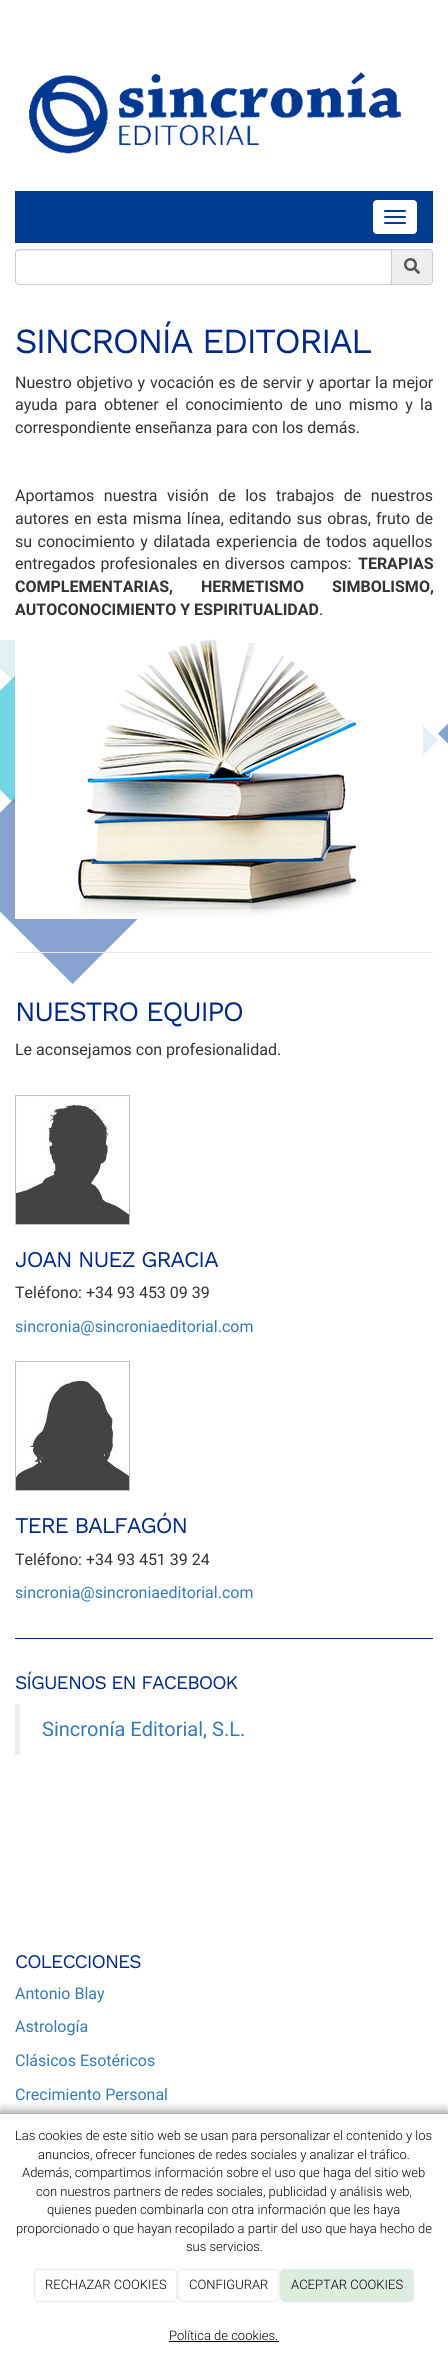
import math
import cairocffi as cairo

surface = cairo.ImageSurface(cairo.FORMAT_RGB24, 448, 2359)
cr = cairo.Context(surface)
options = cairo.FontOptions()
options.set_hint_metrics(cairo.HINT_METRICS_OFF)
options.set_hint_style(cairo.HINT_STYLE_NONE)
cr.set_font_options(options)
cr.set_miter_limit(4)


def use_color(code):
    cr.set_source_rgb(*(v / 255 for v in bytes.fromhex(code[-6:])))


def spaced_text(x, y, s, letter, word):
    cr.move_to(x, y)
    for ch in s:
        cr.show_text(ch)
        cr.rel_move_to(letter + word * (ch == ' '), 0)


def round_rect(x, y, w, h, r):
    cr.new_sub_path()
    for i, (u, v) in enumerate([(x + w - r, y + h - r), (x + r, y + h - r), (x + r, y + r), (x + w - r, y + r)]):
        cr.arc(u, v, r, i * math.pi / 2, (i + 1) * math.pi / 2)
    cr.close_path()


def shadow(x, y, w, h, r, blur, alpha):
    cr.push_group_with_content(cairo.CONTENT_ALPHA)
    cr.set_operator(cairo.OPERATOR_SOURCE)
    for i in range(15, -16, -2):
        e = blur * i / 6
        if min(w, h) + 2 * e > 0:
            cr.set_source_rgba(0, 0, 0, alpha * math.erfc((i - 1) / 8.5) / 2)
            round_rect(x - e, y - e, w + 2 * e, h + 2 * e, max(0, min(r + e + blur * .6, min(w, h) / 2 + e)))
            cr.fill()
    cr.mask(cr.pop_group())


def picture(path, x, y, w, h):
    cr.save()
    cr.set_source_surface(cairo.ImageSurface.create_from_png(path), x, y)
    cr.rectangle(x, y, w, h)
    cr.fill()
    cr.restore()


use_color("#ffffff")
cr.paint()
picture("img1.png", 0, 640, 448, 344)
picture("img2.png", 29, 72, 372, 82)
use_color("#003d91")
cr.rectangle(16, 191, 417, 51)
cr.fill()
use_color("#003693")
cr.rectangle(15, 242, 418, 1)
cr.fill()
use_color("#003d91")
cr.rectangle(15, 191, 1, 52)
cr.fill()
use_color("#ffffff")
round_rect(373.5, 200.5, 43, 33, 3.5)
cr.fill_preserve()
cr.set_line_width(1)
cr.stroke()
use_color("#003d91")
round_rect(384, 210, 22, 2, 1)
cr.fill()
round_rect(384, 216, 22, 2, 1)
cr.fill()
round_rect(384, 222, 22, 2, 1)
cr.fill()
use_color("#ececec")
cr.new_path()
cr.move_to(19, 251)
cr.line_to(391, 251)
cr.line_to(391, 250)
cr.line_to(19, 250)
cr.curve_to(17, 250, 16, 251, 16, 253)
cr.line_to(16, 254)
cr.curve_to(16, 252, 17, 251, 19, 251)
cr.close_path()
cr.fill()
cr.new_path()
cr.move_to(19, 249.5)
cr.line_to(391.5, 249.5)
cr.line_to(391.5, 284.5)
cr.line_to(19, 284.5)
cr.curve_to(17, 284.5, 15.5, 283, 15.5, 281)
cr.line_to(15.5, 253)
cr.curve_to(15.5, 251, 17, 249.5, 19, 249.5)
cr.close_path()
use_color("#cccccc")
cr.stroke()
use_color("#eeeeee")
cr.new_path()
cr.move_to(392, 249)
cr.line_to(429, 249)
cr.curve_to(431, 249, 433, 251, 433, 253)
cr.line_to(433, 281)
cr.curve_to(433, 283, 431, 285, 429, 285)
cr.line_to(392, 285)
cr.close_path()
cr.fill()
use_color("#cccccc")
cr.set_fill_rule(cairo.FILL_RULE_EVEN_ODD)
cr.new_path()
cr.move_to(392, 249)
cr.line_to(429, 249)
cr.curve_to(431, 249, 433, 251, 433, 253)
cr.line_to(433, 281)
cr.curve_to(433, 283, 431, 285, 429, 285)
cr.line_to(392, 285)
cr.close_path()
cr.move_to(392, 250)
cr.line_to(429, 250)
cr.curve_to(431, 250, 432, 251, 432, 253)
cr.line_to(432, 281)
cr.curve_to(432, 283, 431, 284, 429, 284)
cr.line_to(392, 284)
cr.close_path()
cr.fill()
picture("img3.png", 404, 258, 16, 16)
cr.select_font_face("Work Sans")
cr.set_font_size(35.25)
use_color("#002985")
spaced_text(15, 353, "SINCRONÍA EDITORIAL", -1.75, 0)
cr.select_font_face("Roboto")
cr.set_font_size(16)
use_color("#333333")
spaced_text(15, 388, "Nuestro objetivo y vocación es de servir y aportar la mejor", 0, 0.75)
spaced_text(15, 410, "ayuda para obtener el conocimiento de uno mismo y la", 0, 3.25)
cr.move_to(15, 433)
cr.show_text("correspondiente enseñanza para con los demás.")
spaced_text(15, 501, "Aportamos nuestra visión de los trabajos de nuestros", 0, 5.5)
spaced_text(15, 524, "autores en esta misma línea, editando sus obras, fruto de", 0, 1.25)
spaced_text(15, 547, "su conocimiento y dilatada experiencia de todos aquellos", 0, 1.5)
spaced_text(15, 569, "entregados profesionales en diversos campos:", 0, 1)
cr.select_font_face("Roboto", cairo.FONT_SLANT_NORMAL, cairo.FONT_WEIGHT_BOLD)
cr.move_to(358, 569)
cr.show_text("TERAPIAS")
spaced_text(15, 592, "COMPLEMENTARIAS, HERMETISMO SIMBOLISMO,", 0, 24)
cr.move_to(15, 615)
cr.show_text("AUTOCONOCIMIENTO Y ESPIRITUALIDAD")
cr.select_font_face("Roboto")
cr.move_to(319, 615)
cr.show_text(".")
picture("img4.png", 15, 639, 408, 280)
use_color("#e8e8e8")
cr.rectangle(15, 952, 418, 1)
cr.fill()
cr.select_font_face("Work Sans")
cr.set_font_size(28)
use_color("#002985")
spaced_text(15, 1021, "NUESTRO EQUIPO", -1.4, 0)
cr.select_font_face("Roboto")
cr.set_font_size(16)
use_color("#333333")
cr.move_to(15, 1055)
cr.show_text("Le aconsejamos con profesionalidad.")
picture("img5.png", 15, 1095, 115, 130)
cr.select_font_face("Work Sans")
cr.set_font_size(22.5)
use_color("#002985")
spaced_text(15, 1267, "JOAN NUEZ GRACIA", -1.1, 0)
cr.select_font_face("Roboto")
cr.set_font_size(16)
use_color("#333333")
cr.move_to(15, 1298)
cr.show_text("Teléfono: +34 93 453 09 39")
use_color("#337ab7")
cr.move_to(15, 1332)
cr.show_text("sincronia@sincroniaeditorial.com")
picture("img6.png", 15, 1361, 115, 130)
cr.select_font_face("Work Sans")
cr.set_font_size(22.5)
use_color("#002985")
spaced_text(15, 1533, "TERE BALFAGÓN", -1.1, 0)
cr.select_font_face("Roboto")
cr.set_font_size(16)
use_color("#333333")
cr.move_to(15, 1565)
cr.show_text("Teléfono: +34 93 451 39 24")
use_color("#337ab7")
cr.move_to(15, 1598)
cr.show_text("sincronia@sincroniaeditorial.com")
use_color("#002985")
cr.rectangle(15, 1638, 418, 1)
cr.fill()
cr.select_font_face("Work Sans")
cr.set_font_size(19.25)
spaced_text(15, 1689, "SÍGUENOS EN FACEBOOK", -1, 0)
use_color("#eeeeee")
cr.rectangle(15, 1704, 5, 51)
cr.fill()
cr.select_font_face("Roboto")
cr.set_font_size(20)
use_color("#337ab7")
cr.move_to(42, 1736)
cr.show_text("Sincronía Editorial, S.L.")
cr.select_font_face("Work Sans")
cr.set_font_size(19.25)
use_color("#002985")
spaced_text(15, 1968, "COLECCIONES", -1, 0)
cr.select_font_face("Roboto")
cr.set_font_size(16)
use_color("#337ab7")
cr.move_to(15, 1999)
cr.show_text("Antonio Blay")
cr.move_to(15, 2032)
cr.show_text("Astrología")
cr.move_to(15, 2066)
cr.show_text("Clásicos Esotéricos")
cr.move_to(15, 2100)
cr.show_text("Crecimiento Personal")
use_color("#000000")
shadow(0, 2114, 448, 245, 0, 6.5, 0.6)
use_color("#ffffff")
cr.rectangle(0, 2114, 448, 245)
cr.fill()
cr.select_font_face("Roboto Light")
cr.set_font_size(13)
use_color("#000000")
cr.move_to(15, 2140)
cr.show_text("Las cookies de este sitio web se usan para personalizar el contenido y los")
cr.move_to(38, 2159)
cr.show_text("anuncios, ofrecer funciones de redes sociales y analizar el tráfico.")
cr.move_to(22, 2177)
cr.show_text("Además, compartimos información sobre el uso que haga del sitio web")
cr.move_to(36, 2196)
cr.show_text("con nuestros partners de redes sociales, publicidad y análisis web,")
cr.move_to(47, 2214)
cr.show_text("quienes pueden combinarla con otra información que les haya")
cr.move_to(16, 2233)
cr.show_text("proporcionado o que hayan recopilado a partir del uso que haya hecho de")
cr.move_to(186, 2251)
cr.show_text("sus servicios.")
use_color("#000000")
shadow(35, 2270, 141, 31, 3, 1, 0.25)
use_color("#ffffff")
round_rect(35, 2270, 141, 31, 3)
cr.fill()
use_color("#000000")
cr.move_to(45, 2289)
cr.show_text("RECHAZAR COOKIES")
use_color("#000000")
shadow(179, 2270, 99, 31, 3, 1, 0.25)
use_color("#ffffff")
round_rect(179, 2270, 99, 31, 3)
cr.fill()
use_color("#000000")
cr.move_to(189, 2289)
cr.show_text("CONFIGURAR")
use_color("#000000")
shadow(281, 2270, 132, 31, 3, 1, 0.25)
use_color("#dcecdf")
round_rect(281, 2270, 132, 31, 3)
cr.fill()
use_color("#000000")
cr.move_to(291, 2289)
cr.show_text("ACEPTAR COOKIES")
cr.move_to(169, 2340)
cr.show_text("Política de cookies.")
cr.rectangle(169, 2341, 110, 1)
cr.fill()
surface.write_to_png("result.png")
